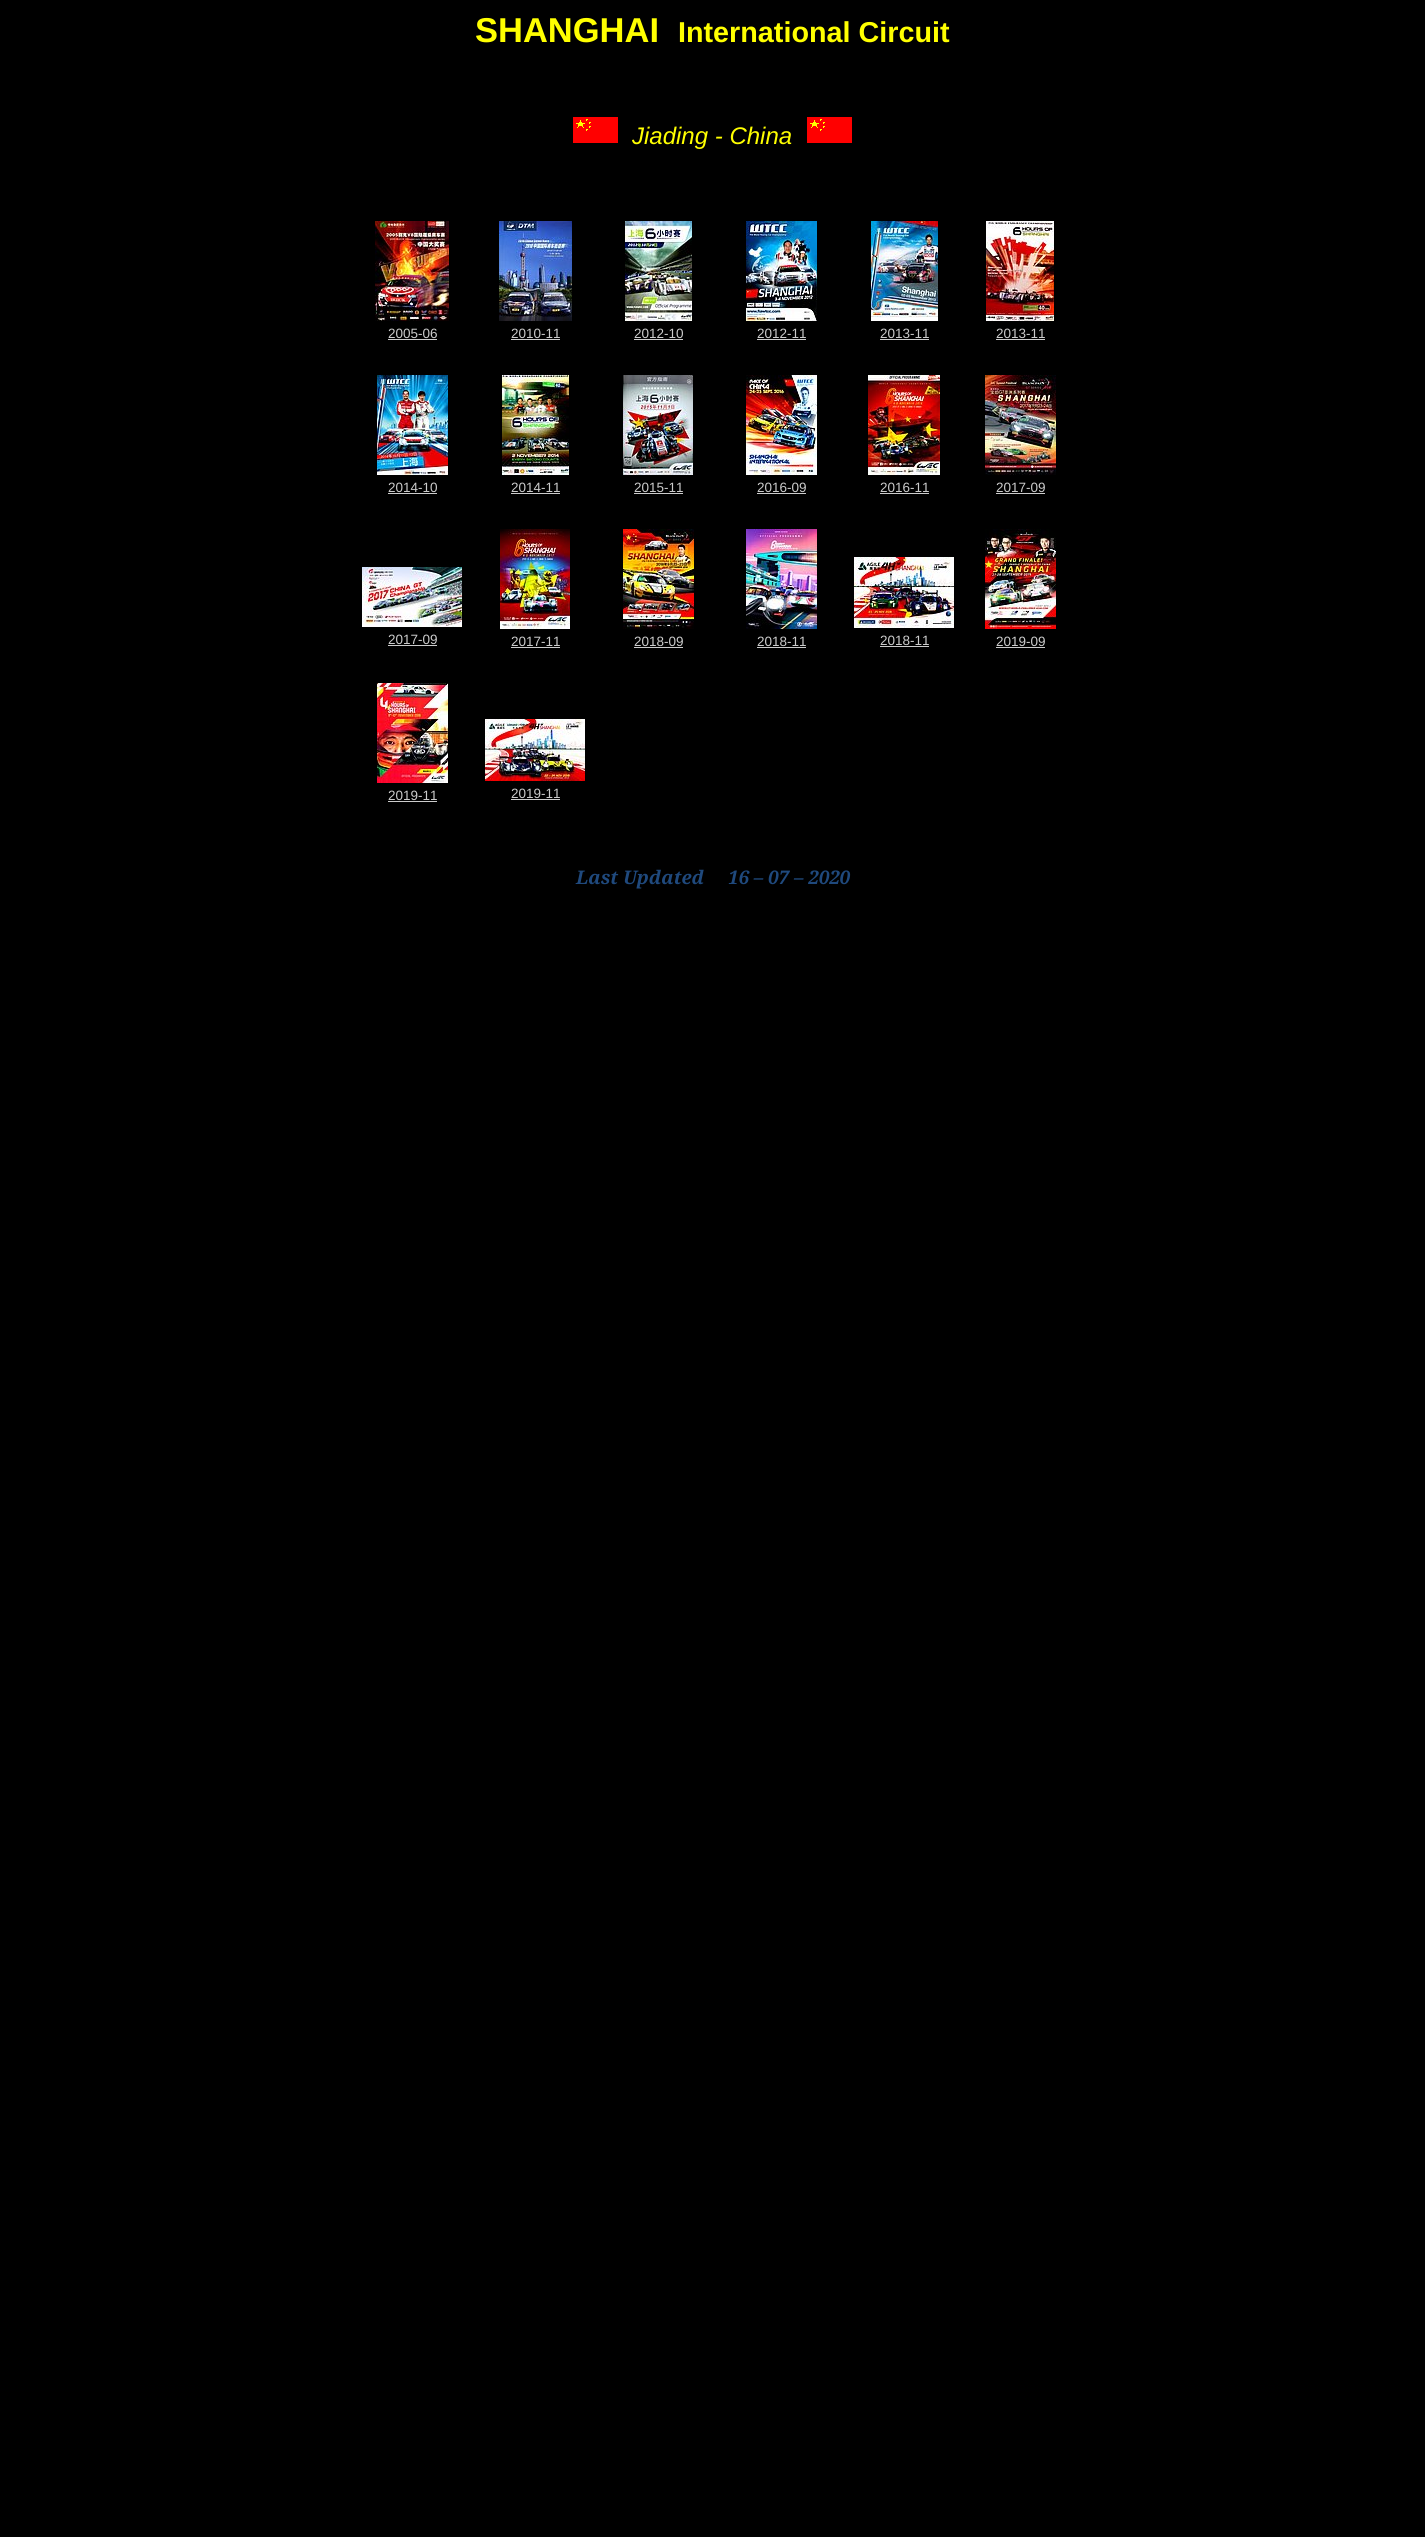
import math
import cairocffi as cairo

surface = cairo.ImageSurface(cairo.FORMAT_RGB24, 1425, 2537)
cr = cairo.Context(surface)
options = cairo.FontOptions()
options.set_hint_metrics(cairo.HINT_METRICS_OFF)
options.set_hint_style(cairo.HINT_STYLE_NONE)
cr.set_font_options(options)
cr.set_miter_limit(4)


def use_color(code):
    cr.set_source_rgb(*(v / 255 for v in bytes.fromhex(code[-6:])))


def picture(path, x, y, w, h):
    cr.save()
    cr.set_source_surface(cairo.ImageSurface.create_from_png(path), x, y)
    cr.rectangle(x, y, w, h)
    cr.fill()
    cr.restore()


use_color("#000000")
cr.paint()
cr.select_font_face("Liberation Sans", cairo.FONT_SLANT_NORMAL, cairo.FONT_WEIGHT_BOLD)
cr.set_font_size(34.5)
use_color("#ffff00")
cr.move_to(475, 42)
cr.show_text("SHANGHAI")
cr.set_font_size(28.75)
cr.move_to(678, 42)
cr.show_text("International Circuit")
picture("img1.png", 573, 117, 45, 26)
cr.select_font_face("Liberation Sans", cairo.FONT_SLANT_ITALIC)
cr.set_font_size(24)
cr.move_to(632, 144)
cr.show_text("Jiading - China")
picture("img1.png", 807, 117, 45, 26)
picture("img2.png", 375, 221, 74, 100)
cr.select_font_face("Liberation Sans")
cr.set_font_size(13.5)
use_color("#cccccc")
cr.move_to(388, 338)
cr.show_text("2005-06")
cr.rectangle(388, 339, 49, 1)
cr.fill()
picture("img3.png", 499, 221, 73, 100)
cr.move_to(511, 338)
cr.show_text("2010-11")
cr.rectangle(511, 339, 49, 1)
cr.fill()
picture("img4.png", 625, 221, 67, 100)
cr.move_to(634, 338)
cr.show_text("2012-10")
cr.rectangle(634, 339, 49, 1)
cr.fill()
picture("img5.png", 746, 221, 71, 100)
cr.move_to(757, 338)
cr.show_text("2012-11")
cr.rectangle(757, 339, 49, 1)
cr.fill()
picture("img6.png", 871, 221, 67, 100)
cr.move_to(880, 338)
cr.show_text("2013-11")
cr.rectangle(880, 339, 49, 1)
cr.fill()
picture("img7.png", 986, 221, 68, 100)
cr.move_to(996, 338)
cr.show_text("2013-11")
cr.rectangle(996, 339, 49, 1)
cr.fill()
picture("img8.png", 377, 375, 71, 100)
cr.move_to(388, 492)
cr.show_text("2014-10")
cr.rectangle(388, 493, 49, 1)
cr.fill()
picture("img9.png", 502, 375, 67, 100)
cr.move_to(511, 492)
cr.show_text("2014-11")
cr.rectangle(511, 493, 49, 1)
cr.fill()
picture("img10.png", 623, 375, 70, 100)
cr.move_to(634, 492)
cr.show_text("2015-11")
cr.rectangle(634, 493, 49, 1)
cr.fill()
picture("img11.png", 746, 375, 71, 100)
cr.move_to(757, 492)
cr.show_text("2016-09")
cr.rectangle(757, 493, 49, 1)
cr.fill()
picture("img12.png", 868, 375, 72, 100)
cr.move_to(880, 492)
cr.show_text("2016-11")
cr.rectangle(880, 493, 49, 1)
cr.fill()
picture("img13.png", 985, 375, 71, 100)
cr.move_to(996, 492)
cr.show_text("2017-09")
cr.rectangle(996, 493, 49, 1)
cr.fill()
picture("img14.png", 362, 567, 100, 60)
cr.move_to(388, 644)
cr.show_text("2017-09")
cr.rectangle(388, 645, 49, 1)
cr.fill()
picture("img15.png", 500, 529, 70, 100)
cr.move_to(511, 646)
cr.show_text("2017-11")
cr.rectangle(511, 647, 49, 1)
cr.fill()
picture("img16.png", 623, 529, 71, 100)
cr.move_to(634, 646)
cr.show_text("2018-09")
cr.rectangle(634, 647, 49, 1)
cr.fill()
picture("img17.png", 746, 529, 71, 100)
cr.move_to(757, 646)
cr.show_text("2018-11")
cr.rectangle(757, 647, 49, 1)
cr.fill()
picture("img18.png", 854, 557, 100, 71)
cr.move_to(880, 645)
cr.show_text("2018-11")
cr.rectangle(880, 646, 49, 1)
cr.fill()
picture("img19.png", 985, 529, 71, 100)
cr.move_to(996, 646)
cr.show_text("2019-09")
cr.rectangle(996, 647, 49, 1)
cr.fill()
picture("img20.png", 377, 683, 71, 100)
cr.move_to(388, 800)
cr.show_text("2019-11")
cr.rectangle(388, 801, 49, 1)
cr.fill()
picture("img21.png", 485, 719, 100, 62)
cr.move_to(511, 798)
cr.show_text("2019-11")
cr.rectangle(511, 799, 49, 1)
cr.fill()
cr.select_font_face("Noto Serif", cairo.FONT_SLANT_ITALIC, cairo.FONT_WEIGHT_BOLD)
cr.set_font_size(18.75)
use_color("#1f497d")
cr.move_to(576, 884)
cr.show_text("Last Updated")
cr.move_to(728, 884)
cr.show_text("16 – 07 – 2020")
surface.write_to_png("result.png")
